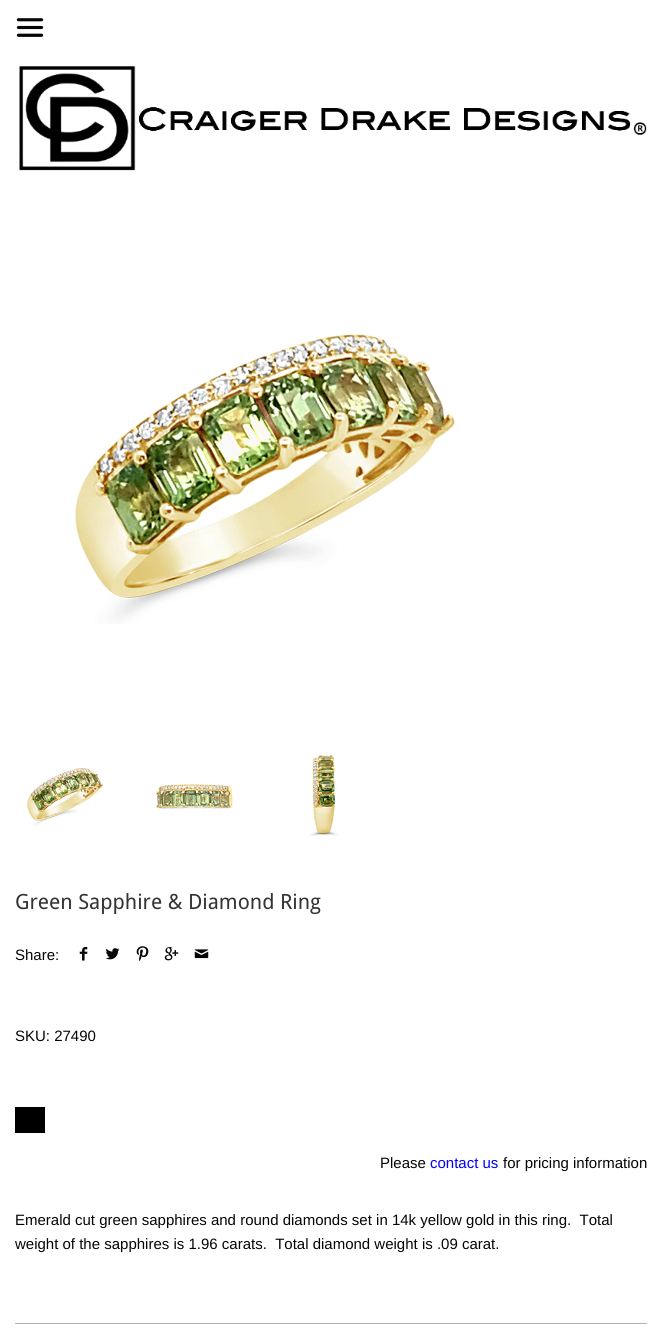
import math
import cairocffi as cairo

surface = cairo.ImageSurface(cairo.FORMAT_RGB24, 662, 1342)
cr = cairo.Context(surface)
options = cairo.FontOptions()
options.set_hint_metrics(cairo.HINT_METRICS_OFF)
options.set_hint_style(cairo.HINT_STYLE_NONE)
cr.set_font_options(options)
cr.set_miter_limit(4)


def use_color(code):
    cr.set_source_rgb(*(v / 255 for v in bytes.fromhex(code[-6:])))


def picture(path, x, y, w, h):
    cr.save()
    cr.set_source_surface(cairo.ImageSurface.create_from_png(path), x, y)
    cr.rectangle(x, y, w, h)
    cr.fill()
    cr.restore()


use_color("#ffffff")
cr.paint()
picture("img1.png", 16, 18, 28, 19)
picture("img2.png", 19, 66, 628, 105)
picture("img3.png", 75, 334, 381, 290)
picture("img4.png", 27, 768, 76, 58)
picture("img5.png", 155, 784, 78, 25)
picture("img6.png", 310, 754, 28, 82)
cr.select_font_face("Droid Sans")
cr.set_font_size(21)
use_color("#333333")
cr.move_to(15, 909)
cr.show_text("Green Sapphire & Diamond Ring")
cr.select_font_face("Liberation Sans")
cr.set_font_size(15)
use_color("#050505")
cr.move_to(15, 960)
cr.show_text("Share:")
picture("img7.png", 79, 947, 9, 14)
picture("img8.png", 105, 948, 15, 12)
picture("img9.png", 136, 946, 13, 16)
picture("img10.png", 164, 947, 15, 14)
picture("img11.png", 194, 949, 15, 10)
cr.move_to(15, 1041)
cr.show_text("SKU: 27490")
use_color("#000000")
cr.rectangle(15, 1107, 30, 26)
cr.fill()
use_color("#050505")
cr.move_to(380, 1168)
cr.show_text("Please")
use_color("#0000ff")
cr.move_to(430, 1168)
cr.show_text("contact us")
use_color("#050505")
cr.move_to(503, 1168)
cr.show_text("for pricing information")
cr.move_to(15, 1225)
cr.show_text("Emerald cut green sapphires and round diamonds set in 14k yellow gold in this ring.  Total")
cr.move_to(15, 1249)
cr.show_text("weight of the sapphires is 1.96 carats.  Total diamond weight is .09 carat.")
use_color("#b4b3b3")
cr.rectangle(15, 1323, 632, 1)
cr.fill()
surface.write_to_png("result.png")
